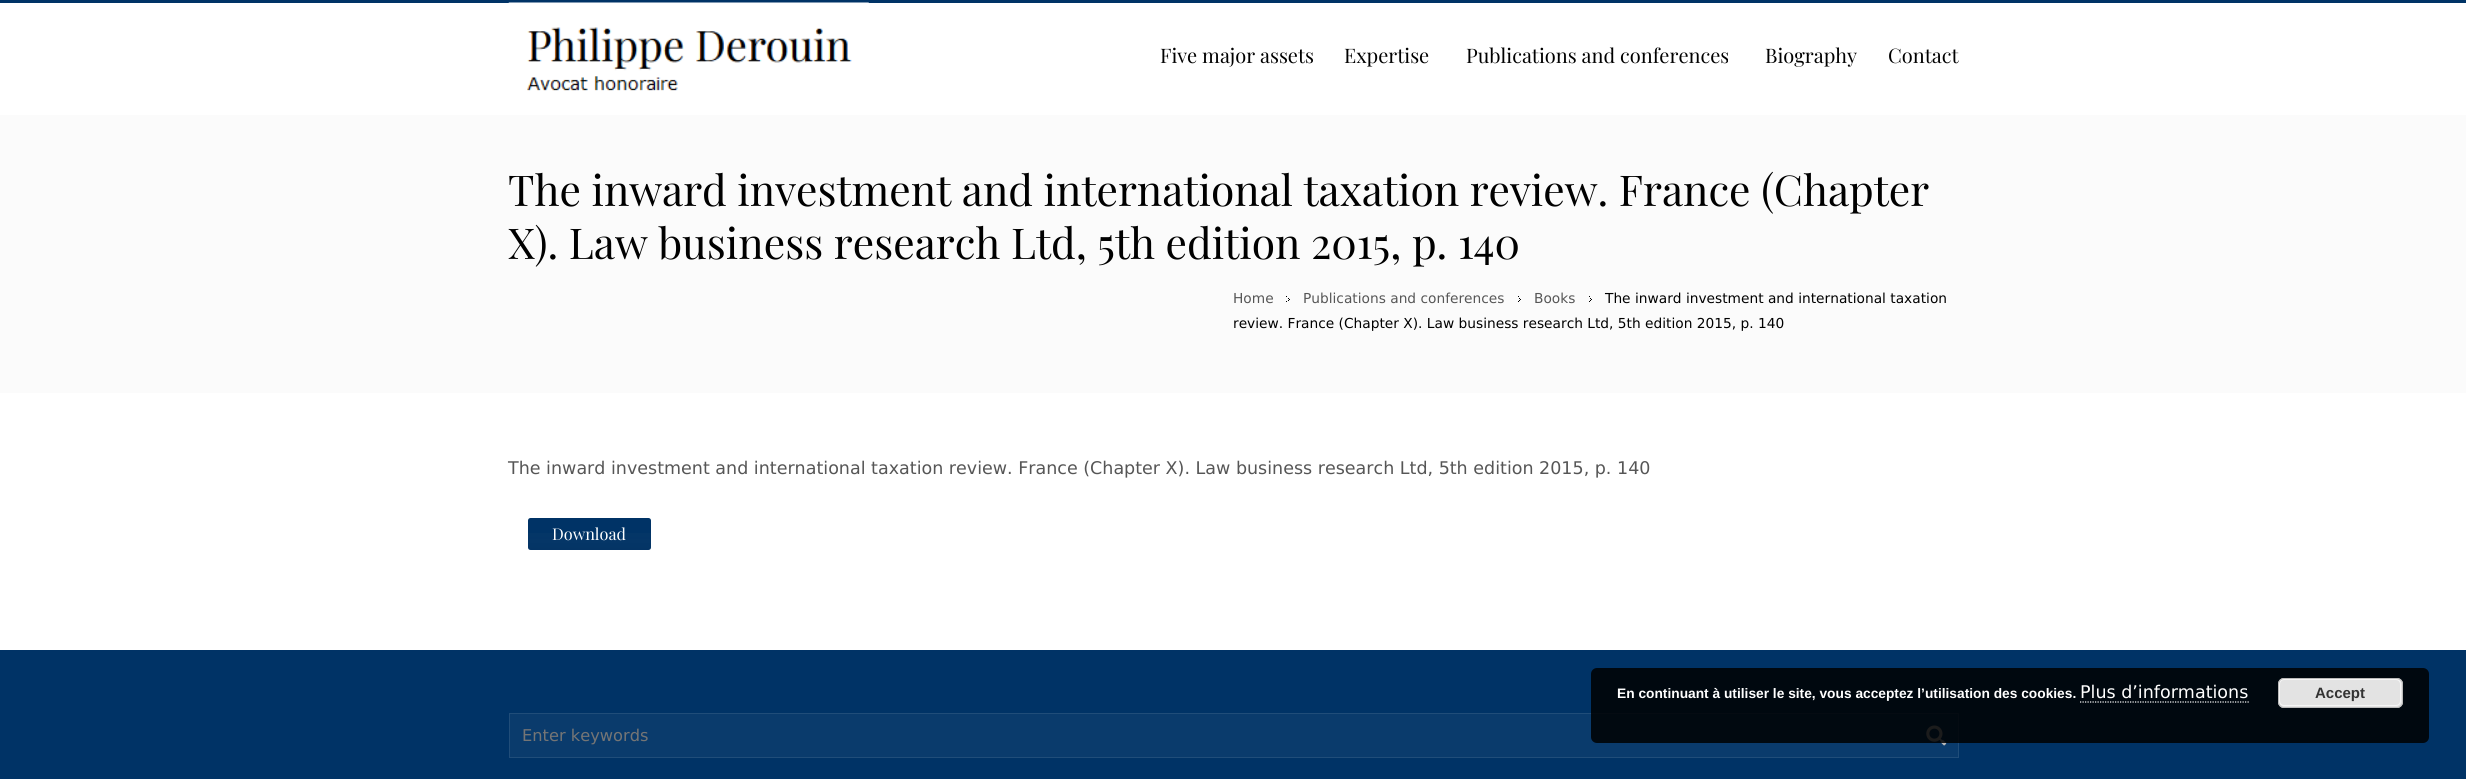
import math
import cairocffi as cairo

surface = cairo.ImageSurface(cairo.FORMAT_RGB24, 2466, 779)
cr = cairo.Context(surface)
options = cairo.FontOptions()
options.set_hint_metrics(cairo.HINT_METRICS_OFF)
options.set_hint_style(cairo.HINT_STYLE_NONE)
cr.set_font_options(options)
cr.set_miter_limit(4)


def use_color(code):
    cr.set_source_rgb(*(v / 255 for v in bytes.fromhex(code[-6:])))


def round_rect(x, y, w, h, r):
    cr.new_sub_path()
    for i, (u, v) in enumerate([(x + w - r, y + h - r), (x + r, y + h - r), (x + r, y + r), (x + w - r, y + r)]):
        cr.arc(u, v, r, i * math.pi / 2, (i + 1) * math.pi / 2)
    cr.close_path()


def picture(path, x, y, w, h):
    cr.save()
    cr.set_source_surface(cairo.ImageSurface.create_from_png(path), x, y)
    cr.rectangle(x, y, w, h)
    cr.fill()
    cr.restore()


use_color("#ffffff")
cr.paint()
use_color("#003366")
cr.rectangle(0, 0, 2466, 3)
cr.fill()
picture("img1.png", 508, 2, 361, 89)
cr.select_font_face("Playfair Display")
cr.set_font_size(20)
use_color("#000000")
cr.move_to(1160, 63)
cr.show_text("Five major assets")
cr.move_to(1344, 63)
cr.show_text("Expertise")
cr.move_to(1466, 63)
cr.show_text("Publications and conferences")
cr.move_to(1765, 63)
cr.show_text("Biography")
cr.move_to(1888, 63)
cr.show_text("Contact")
use_color("#fbfbfb")
cr.rectangle(0, 115, 2466, 278)
cr.fill()
cr.set_font_size(42.5)
use_color("#000000")
cr.move_to(508, 206)
cr.show_text("The inward investment and international taxation review. France (Chapter")
cr.move_to(508, 259)
cr.show_text("X). Law business research Ltd, 5th edition 2015, p. 140")
cr.select_font_face("DejaVu Sans")
cr.set_font_size(13.75)
use_color("#565656")
cr.move_to(1233, 303)
cr.show_text("Home")
use_color("#000000")
cr.rectangle(1286, 296, 1, 1)
cr.fill()
cr.rectangle(1286, 301, 1, 1)
cr.fill()
cr.rectangle(1288, 298, 1, 1)
cr.fill()
cr.rectangle(1288, 300, 1, 1)
cr.fill()
cr.rectangle(1289, 299, 1, 1)
cr.fill()
use_color("#565656")
cr.move_to(1303, 303)
cr.show_text("Publications and conferences")
use_color("#000000")
cr.rectangle(1518, 296, 1, 1)
cr.fill()
cr.rectangle(1518, 301, 1, 1)
cr.fill()
cr.rectangle(1519, 298, 1, 1)
cr.fill()
cr.rectangle(1519, 300, 1, 1)
cr.fill()
cr.rectangle(1520, 299, 1, 1)
cr.fill()
use_color("#565656")
cr.move_to(1534, 303)
cr.show_text("Books")
use_color("#000000")
cr.rectangle(1589, 296, 1, 1)
cr.fill()
cr.rectangle(1589, 301, 1, 1)
cr.fill()
cr.rectangle(1590, 298, 1, 1)
cr.fill()
cr.rectangle(1590, 300, 1, 1)
cr.fill()
cr.rectangle(1591, 299, 1, 1)
cr.fill()
cr.move_to(1605, 303)
cr.show_text("The inward investment and international taxation")
cr.move_to(1233, 328)
cr.show_text("review. France (Chapter X). Law business research Ltd, 5th edition 2015, p. 140")
cr.set_font_size(17.5)
use_color("#565656")
cr.move_to(508, 474)
cr.show_text("The inward investment and international taxation review. France (Chapter X). Law business research Ltd, 5th edition 2015, p. 140")
use_color("#003366")
round_rect(528, 518, 123, 32, 2.5)
cr.fill()
picture("img2.png", 528, 533, 123, 17)
cr.select_font_face("Playfair Display")
cr.set_font_size(16.25)
use_color("#ffffff")
cr.move_to(552, 540)
cr.show_text("Download")
use_color("#003366")
cr.rectangle(0, 650, 2466, 129)
cr.fill()
use_color("#0a3b6c")
cr.rectangle(509.5, 713.5, 1449, 44)
cr.fill_preserve()
use_color("#204d79")
cr.set_line_width(1)
cr.stroke()
cr.select_font_face("DejaVu Sans")
use_color("#757575")
cr.move_to(522, 741)
cr.show_text("Enter keywords")
picture("img3.png", 1926, 725, 21, 21)
cr.set_source_rgba(0, 0, 0, 0.85)
round_rect(1591, 668, 838, 75, 6)
cr.fill()
cr.select_font_face("Liberation Sans", cairo.FONT_SLANT_NORMAL, cairo.FONT_WEIGHT_BOLD)
cr.set_font_size(13.75)
use_color("#ffffff")
cr.move_to(1617, 698)
cr.show_text("En continuant à utiliser le site, vous acceptez l’utilisation des cookies.")
cr.select_font_face("DejaVu Sans")
cr.set_font_size(17.5)
cr.move_to(2080, 698)
cr.show_text("Plus d’informations")
cr.new_path()
cr.move_to(2080, 702)
cr.line_to(2249, 702)
cr.set_line_width(1.2)
cr.set_dash([1.25, 1.25])
cr.stroke()
use_color("#e3e3e3")
round_rect(2278, 678, 125, 30, 6)
cr.fill()
round_rect(2279.5, 679.5, 121, 26, 4.5)
use_color("#f6f6f6")
cr.set_line_width(1)
cr.set_dash([])
cr.stroke()
round_rect(2278.5, 678.5, 124, 29, 5.5)
use_color("#bbbbbb")
cr.stroke()
cr.select_font_face("Liberation Sans", cairo.FONT_SLANT_NORMAL, cairo.FONT_WEIGHT_BOLD)
cr.set_font_size(15)
use_color("#333333")
cr.move_to(2315, 698)
cr.show_text("Accept")
surface.write_to_png("result.png")
